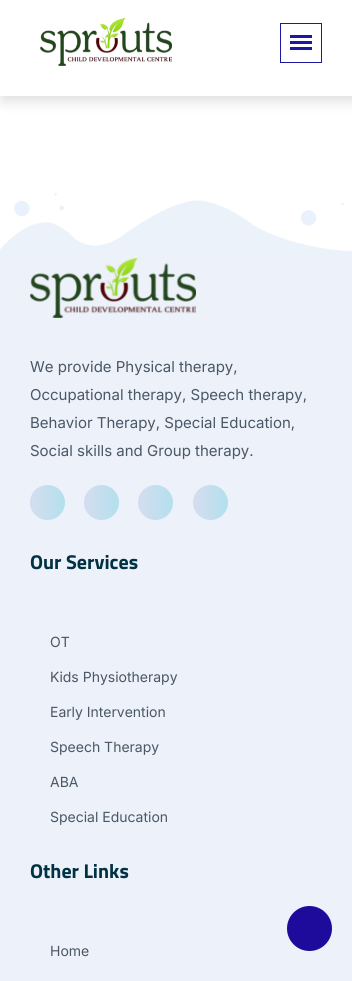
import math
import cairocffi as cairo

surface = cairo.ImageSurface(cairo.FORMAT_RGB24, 352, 981)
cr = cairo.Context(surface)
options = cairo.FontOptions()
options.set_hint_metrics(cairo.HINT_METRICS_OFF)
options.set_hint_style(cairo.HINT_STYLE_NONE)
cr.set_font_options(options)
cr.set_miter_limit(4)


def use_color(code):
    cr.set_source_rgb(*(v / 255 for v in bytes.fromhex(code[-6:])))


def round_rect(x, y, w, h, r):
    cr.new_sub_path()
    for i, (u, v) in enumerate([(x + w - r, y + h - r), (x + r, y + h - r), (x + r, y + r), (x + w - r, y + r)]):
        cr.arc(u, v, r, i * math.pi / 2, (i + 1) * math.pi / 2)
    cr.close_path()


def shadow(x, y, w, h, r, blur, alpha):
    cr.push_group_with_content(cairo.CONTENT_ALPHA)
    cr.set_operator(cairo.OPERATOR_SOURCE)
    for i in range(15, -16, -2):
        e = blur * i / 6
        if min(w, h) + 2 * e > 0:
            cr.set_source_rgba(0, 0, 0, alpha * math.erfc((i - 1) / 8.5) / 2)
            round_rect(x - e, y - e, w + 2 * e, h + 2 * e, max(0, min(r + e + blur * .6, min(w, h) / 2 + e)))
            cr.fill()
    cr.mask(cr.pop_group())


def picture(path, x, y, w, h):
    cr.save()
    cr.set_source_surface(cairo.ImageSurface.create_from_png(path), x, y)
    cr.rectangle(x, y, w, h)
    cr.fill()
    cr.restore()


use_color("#ffffff")
cr.paint()
use_color("#000000")
shadow(3, 4, 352, 96, 0, 7.5, 0.15)
use_color("#ffffff")
cr.rectangle(0, 0, 352, 96)
cr.fill()
picture("img1.png", 40, 18, 132, 48)
cr.rectangle(280.5, 23.5, 41, 39)
use_color("#1c19a0")
cr.set_line_width(1)
cr.stroke()
cr.rectangle(290, 35, 22, 3)
cr.fill()
cr.rectangle(290, 41, 22, 3)
cr.fill()
cr.rectangle(290, 47, 22, 3)
cr.fill()
picture("img2.png", 0, 193, 352, 65)
use_color("#ecf1fa")
cr.rectangle(0, 258, 352, 723)
cr.fill()
picture("img3.png", 30, 258, 166, 60)
cr.select_font_face("Inter")
cr.set_font_size(15)
use_color("#4a5764")
cr.move_to(30, 372)
cr.show_text("We provide Physical therapy,")
cr.move_to(30, 400)
cr.show_text("Occupational therapy, Speech therapy,")
cr.move_to(30, 428)
cr.show_text("Behavior Therapy, Special Education,")
cr.move_to(30, 456)
cr.show_text("Social skills and Group therapy.")
gradient = cairo.LinearGradient(30, 503, 65, 503)
gradient.add_color_stop_rgba(0, 0.835, 0.867, 0.941, 1)
gradient.add_color_stop_rgba(1, 0.702, 0.878, 0.929, 1)
cr.set_source(gradient)
cr.new_path()
cr.arc(47.5, 502.5, 17.5, 0, 2 * math.pi)
cr.fill()
gradient = cairo.LinearGradient(84, 503, 119, 503)
gradient.add_color_stop_rgba(0, 0.835, 0.867, 0.941, 1)
gradient.add_color_stop_rgba(1, 0.702, 0.878, 0.929, 1)
cr.set_source(gradient)
cr.arc(101.5, 502.5, 17.5, 0, 2 * math.pi)
cr.fill()
gradient = cairo.LinearGradient(138, 503, 173, 503)
gradient.add_color_stop_rgba(0, 0.835, 0.867, 0.941, 1)
gradient.add_color_stop_rgba(1, 0.702, 0.878, 0.929, 1)
cr.set_source(gradient)
cr.arc(155.5, 502.5, 17.5, 0, 2 * math.pi)
cr.fill()
gradient = cairo.LinearGradient(193, 503, 228, 503)
gradient.add_color_stop_rgba(0, 0.835, 0.867, 0.941, 1)
gradient.add_color_stop_rgba(1, 0.702, 0.878, 0.929, 1)
cr.set_source(gradient)
cr.arc(210.5, 502.5, 17.5, 0, 2 * math.pi)
cr.fill()
cr.select_font_face("Titillium Web", cairo.FONT_SLANT_NORMAL, cairo.FONT_WEIGHT_BOLD)
cr.set_font_size(20)
use_color("#013243")
cr.move_to(30, 569)
cr.show_text("Our Services")
cr.select_font_face("Inter")
cr.set_font_size(14)
use_color("#4a5764")
cr.move_to(50, 647)
cr.show_text("OT")
cr.move_to(50, 682)
cr.show_text("Kids Physiotherapy")
cr.move_to(50, 717)
cr.show_text("Early Intervention")
cr.move_to(50, 752)
cr.show_text("Speech Therapy")
cr.move_to(50, 787)
cr.show_text("ABA")
cr.move_to(50, 822)
cr.show_text("Special Education")
cr.select_font_face("Titillium Web", cairo.FONT_SLANT_NORMAL, cairo.FONT_WEIGHT_BOLD)
cr.set_font_size(20)
use_color("#013243")
cr.move_to(30, 878)
cr.show_text("Other Links")
cr.select_font_face("Inter")
cr.set_font_size(14)
use_color("#4a5764")
cr.move_to(50, 956)
cr.show_text("Home")
use_color("#1e0b9b")
cr.new_path()
cr.arc(309.5, 928.5, 22.5, 0, 2 * math.pi)
cr.fill()
surface.write_to_png("result.png")
